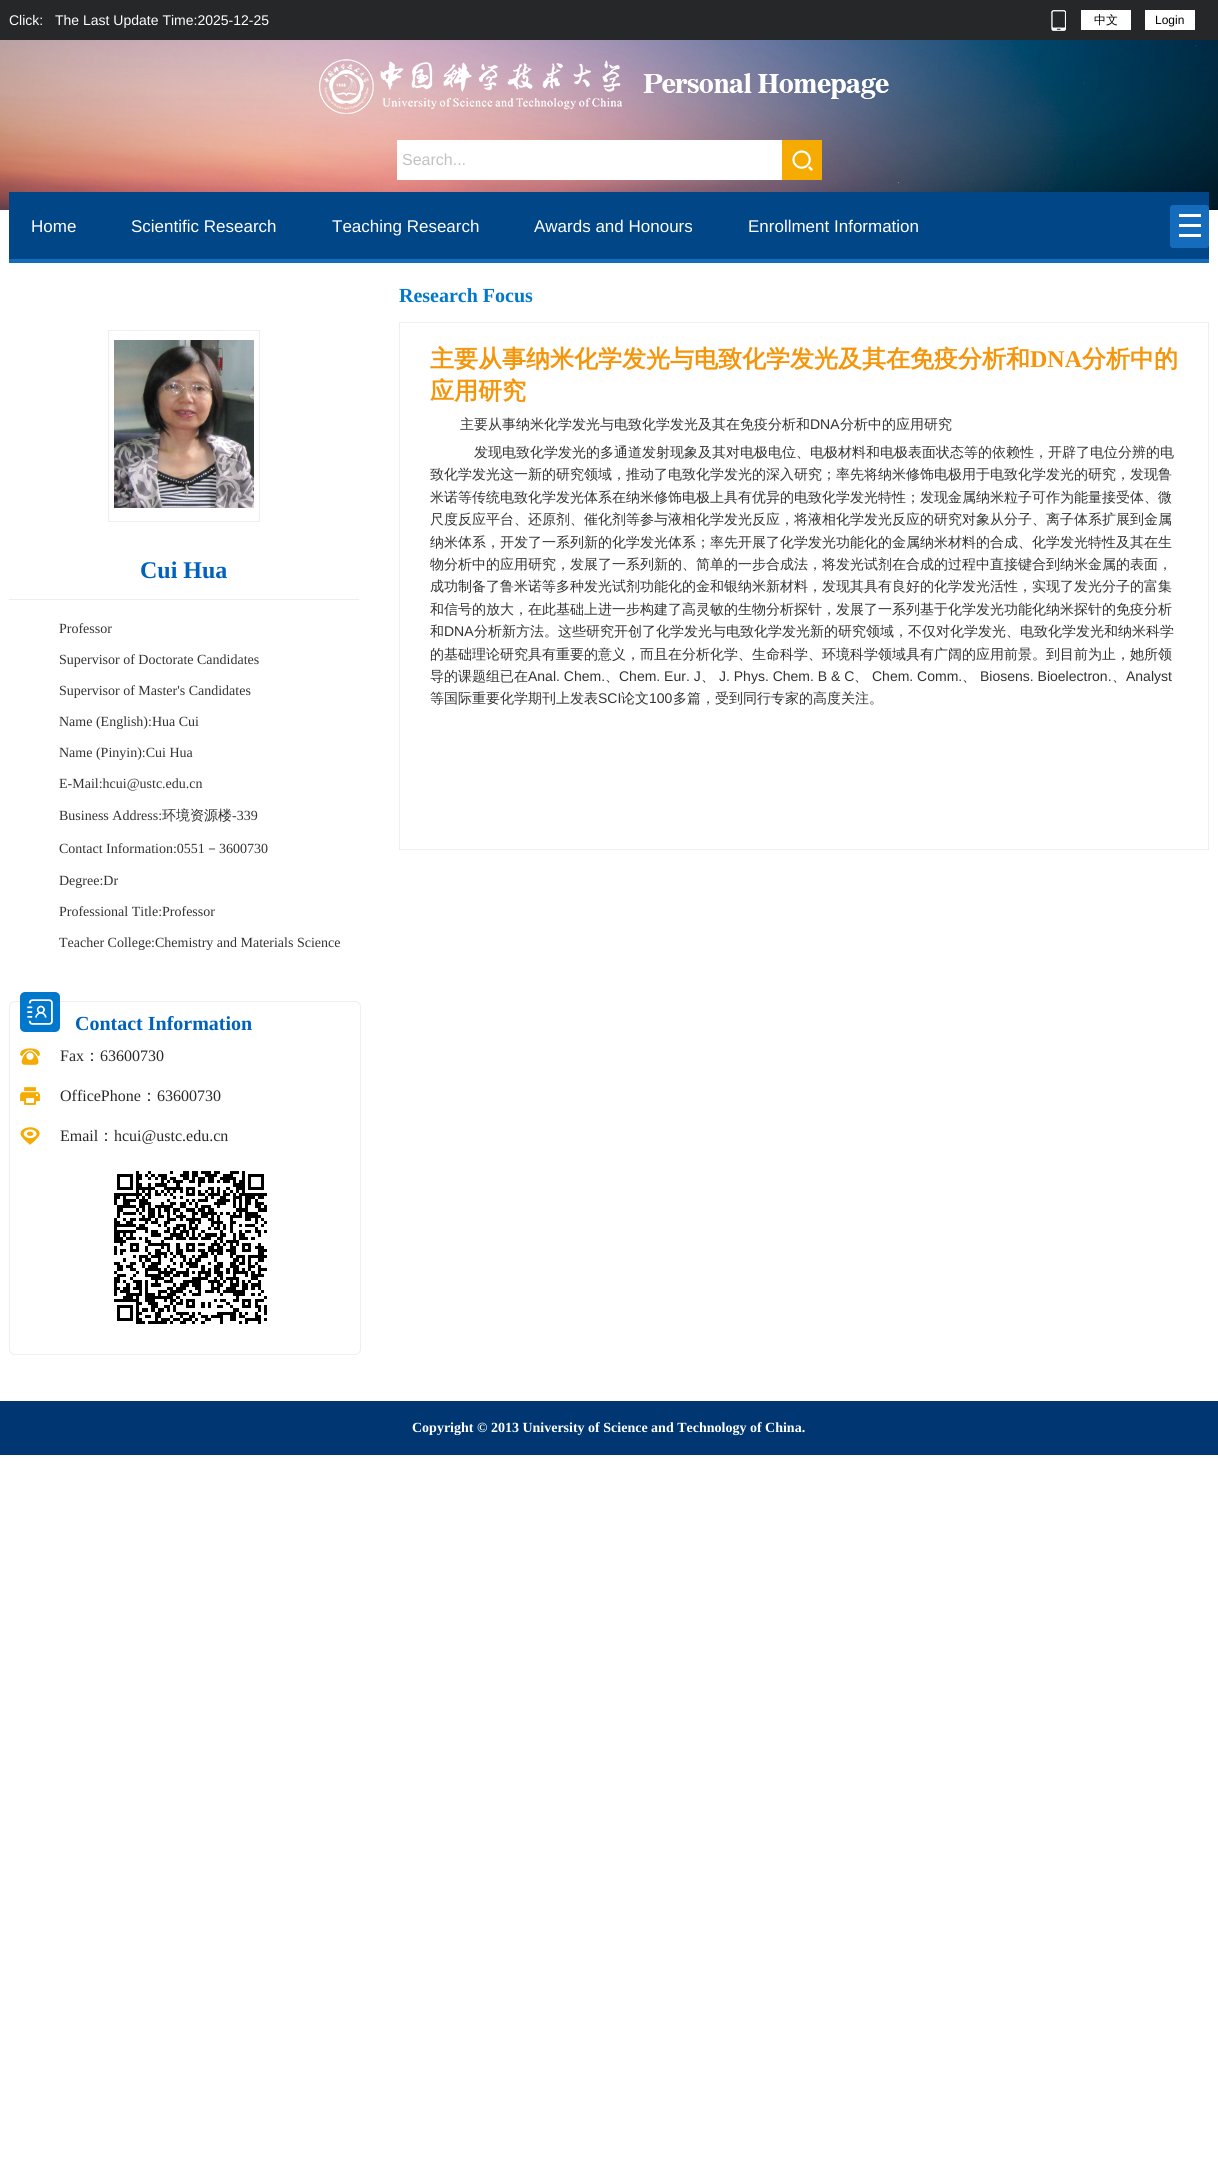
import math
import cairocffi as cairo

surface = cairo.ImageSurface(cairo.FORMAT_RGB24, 1218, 2161)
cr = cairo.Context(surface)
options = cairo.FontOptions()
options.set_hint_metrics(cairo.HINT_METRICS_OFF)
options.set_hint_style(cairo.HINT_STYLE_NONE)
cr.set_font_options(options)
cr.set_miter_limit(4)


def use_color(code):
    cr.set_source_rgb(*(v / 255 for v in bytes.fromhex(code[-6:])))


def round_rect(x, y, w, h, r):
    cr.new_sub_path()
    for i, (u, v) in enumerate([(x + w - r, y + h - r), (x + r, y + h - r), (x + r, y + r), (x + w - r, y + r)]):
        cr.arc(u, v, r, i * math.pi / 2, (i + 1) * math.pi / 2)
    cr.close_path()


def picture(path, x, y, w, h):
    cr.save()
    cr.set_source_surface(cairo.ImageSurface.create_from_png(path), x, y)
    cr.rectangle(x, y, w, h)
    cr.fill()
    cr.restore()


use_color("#ffffff")
cr.paint()
use_color("#262728")
cr.rectangle(0, 0, 1218, 40)
cr.fill()
cr.select_font_face("Liberation Sans")
cr.set_font_size(14)
use_color("#ffffff")
cr.move_to(9, 25)
cr.show_text("Click:")
cr.move_to(55, 25)
cr.show_text("The Last Update Time:2025-12-25")
picture("img1.png", 1051, 10, 15, 21)
cr.rectangle(1081, 10, 50, 20)
cr.fill()
cr.select_font_face("WenQuanYi Zen Hei Medium")
cr.set_font_size(12)
use_color("#000000")
cr.move_to(1094, 24)
cr.show_text("中文")
use_color("#ffffff")
cr.rectangle(1145, 10, 50, 20)
cr.fill()
cr.select_font_face("Liberation Sans")
use_color("#000000")
cr.move_to(1155, 24)
cr.show_text("Login")
picture("img2.png", 0, 40, 1218, 170)
picture("img3.png", 319, 59, 570, 55)
use_color("#ffffff")
cr.rectangle(397, 140, 385, 40)
cr.fill()
cr.set_font_size(16)
use_color("#c1c1c1")
cr.move_to(402, 165)
cr.show_text("Search...")
picture("img4.png", 782, 140, 40, 40)
use_color("#014687")
cr.rectangle(9, 192, 1200, 67)
cr.fill()
use_color("#156bbc")
cr.rectangle(9, 259, 1200, 4)
cr.fill()
cr.set_font_size(17)
use_color("#ffffff")
cr.move_to(31, 232)
cr.show_text("Home")
cr.move_to(131, 232)
cr.show_text("Scientific Research")
cr.move_to(332, 232)
cr.show_text("Teaching Research")
cr.move_to(534, 232)
cr.show_text("Awards and Honours")
cr.move_to(748, 232)
cr.show_text("Enrollment Information")
picture("img5.png", 1170, 205, 39, 43)
cr.select_font_face("Liberation Serif", cairo.FONT_SLANT_NORMAL, cairo.FONT_WEIGHT_BOLD)
cr.set_font_size(20)
use_color("#0178cc")
cr.move_to(399, 302)
cr.show_text("Research Focus")
cr.rectangle(399.5, 322.5, 809, 527)
use_color("#eeeeee")
cr.set_line_width(1)
cr.stroke()
cr.select_font_face("WenQuanYi Zen Hei", cairo.FONT_SLANT_NORMAL, cairo.FONT_WEIGHT_BOLD)
cr.set_font_size(24)
use_color("#f4960b")
cr.move_to(430, 367)
cr.show_text("主要从事纳米化学发光与电致化学发光及其在免疫分析和")
cr.select_font_face("Liberation Serif", cairo.FONT_SLANT_NORMAL, cairo.FONT_WEIGHT_BOLD)
cr.move_to(1030, 367)
cr.show_text("DNA")
cr.select_font_face("WenQuanYi Zen Hei", cairo.FONT_SLANT_NORMAL, cairo.FONT_WEIGHT_BOLD)
cr.move_to(1082, 367)
cr.show_text("分析中的")
cr.move_to(430, 399)
cr.show_text("应用研究")
cr.select_font_face("WenQuanYi Zen Hei Medium")
cr.set_font_size(14)
use_color("#333333")
cr.move_to(460, 429)
cr.show_text("主要从事纳米化学发光与电致化学发光及其在免疫分析和")
cr.select_font_face("Liberation Sans")
cr.move_to(810, 429)
cr.show_text("DNA")
cr.select_font_face("WenQuanYi Zen Hei Medium")
cr.move_to(840, 429)
cr.show_text("分析中的应用研究")
cr.move_to(474, 457)
cr.show_text("发现电致化学发光的多通道发射现象及其对电极电位、电极材料和电极表面状态等的依赖性，开辟了电位分辨的电")
cr.move_to(430, 479)
cr.show_text("致化学发光这一新的研究领域，推动了电致化学发光的深入研究；率先将纳米修饰电极用于电致化学发光的研究，发现鲁")
cr.move_to(430, 502)
cr.show_text("米诺等传统电致化学发光体系在纳米修饰电极上具有优异的电致化学发光特性；发现金属纳米粒子可作为能量接受体、微")
cr.move_to(430, 524)
cr.show_text("尺度反应平台、还原剂、催化剂等参与液相化学发光反应，将液相化学发光反应的研究对象从分子、离子体系扩展到金属")
cr.move_to(430, 547)
cr.show_text("纳米体系，开发了一系列新的化学发光体系；率先开展了化学发光功能化的金属纳米材料的合成、化学发光特性及其在生")
cr.move_to(430, 569)
cr.show_text("物分析中的应用研究，发展了一系列新的、简单的一步合成法，将发光试剂在合成的过程中直接键合到纳米金属的表面，")
cr.move_to(430, 591)
cr.show_text("成功制备了鲁米诺等多种发光试剂功能化的金和银纳米新材料，发现其具有良好的化学发光活性，实现了发光分子的富集")
cr.move_to(430, 614)
cr.show_text("和信号的放大，在此基础上进一步构建了高灵敏的生物分析探针，发展了一系列基于化学发光功能化纳米探针的免疫分析")
cr.move_to(430, 636)
cr.show_text("和")
cr.select_font_face("Liberation Sans")
cr.move_to(444, 636)
cr.show_text("DNA")
cr.select_font_face("WenQuanYi Zen Hei Medium")
cr.move_to(474, 636)
cr.show_text("分析新方法。这些研究开创了化学发光与电致化学发光新的研究领域，不仅对化学发光、电致化学发光和纳米科学")
cr.move_to(430, 659)
cr.show_text("的基础理论研究具有重要的意义，而且在分析化学、生命科学、环境科学领域具有广阔的应用前景。到目前为止，她所领")
cr.move_to(430, 681)
cr.show_text("导的课题组已在")
cr.select_font_face("Liberation Sans")
cr.move_to(528, 681)
cr.show_text("Anal. Chem.")
cr.select_font_face("WenQuanYi Zen Hei Medium")
cr.move_to(605, 681)
cr.show_text("、")
cr.select_font_face("Liberation Sans")
cr.move_to(619, 681)
cr.show_text("Chem. Eur. J")
cr.select_font_face("WenQuanYi Zen Hei Medium")
cr.move_to(701, 681)
cr.show_text("、")
cr.select_font_face("Liberation Sans")
cr.move_to(719, 681)
cr.show_text("J. Phys. Chem. B & C")
cr.select_font_face("WenQuanYi Zen Hei Medium")
cr.move_to(854, 681)
cr.show_text("、")
cr.select_font_face("Liberation Sans")
cr.move_to(872, 681)
cr.show_text("Chem. Comm.")
cr.select_font_face("WenQuanYi Zen Hei Medium")
cr.move_to(962, 681)
cr.show_text("、")
cr.select_font_face("Liberation Sans")
cr.move_to(980, 681)
cr.show_text("Biosens. Bioelectron.")
cr.select_font_face("WenQuanYi Zen Hei Medium")
cr.move_to(1112, 681)
cr.show_text("、")
cr.select_font_face("Liberation Sans")
cr.move_to(1126, 681)
cr.show_text("Analyst")
cr.select_font_face("WenQuanYi Zen Hei Medium")
cr.move_to(430, 703)
cr.show_text("等国际重要化学期刊上发表")
cr.select_font_face("Liberation Sans")
cr.move_to(598, 703)
cr.show_text("SCI")
cr.select_font_face("WenQuanYi Zen Hei Medium")
cr.move_to(621, 703)
cr.show_text("论文")
cr.select_font_face("Liberation Sans")
cr.move_to(649, 703)
cr.show_text("100")
cr.select_font_face("WenQuanYi Zen Hei Medium")
cr.move_to(673, 703)
cr.show_text("多篇，受到同行专家的高度关注。")
cr.rectangle(108.5, 330.5, 151, 191)
use_color("#eeeeee")
cr.stroke()
picture("img6.png", 114, 340, 140, 168)
cr.select_font_face("Liberation Serif", cairo.FONT_SLANT_NORMAL, cairo.FONT_WEIGHT_BOLD)
cr.set_font_size(24)
use_color("#0062bd")
cr.move_to(140, 578)
cr.show_text("Cui Hua")
use_color("#eeeeee")
cr.rectangle(9, 599, 350, 1)
cr.fill()
cr.select_font_face("Liberation Serif")
cr.set_font_size(14)
use_color("#333333")
cr.move_to(59, 633)
cr.show_text("Professor")
cr.move_to(59, 664)
cr.show_text("Supervisor of Doctorate Candidates")
cr.move_to(59, 695)
cr.show_text("Supervisor of Master's Candidates")
cr.move_to(59, 726)
cr.show_text("Name (English):Hua Cui")
cr.move_to(59, 757)
cr.show_text("Name (Pinyin):Cui Hua")
cr.move_to(59, 788)
cr.show_text("E-Mail:hcui@ustc.edu.cn")
cr.move_to(59, 820)
cr.show_text("Business Address:")
cr.select_font_face("WenQuanYi Zen Hei Medium")
cr.move_to(162, 820)
cr.show_text("环境资源楼")
cr.select_font_face("Liberation Serif")
cr.move_to(232, 820)
cr.show_text("-339")
cr.move_to(59, 853)
cr.show_text("Contact Information:0551")
cr.select_font_face("WenQuanYi Zen Hei Medium")
cr.move_to(205, 853)
cr.show_text("－")
cr.select_font_face("Liberation Serif")
cr.move_to(219, 853)
cr.show_text("3600730")
cr.move_to(59, 885)
cr.show_text("Degree:Dr")
cr.move_to(59, 916)
cr.show_text("Professional Title:Professor")
cr.move_to(59, 947)
cr.show_text("Teacher College:Chemistry and Materials Science")
round_rect(9.5, 1001.5, 351, 353, 5.5)
use_color("#eeeeee")
cr.stroke()
picture("img7.png", 20, 992, 40, 40)
cr.select_font_face("Liberation Serif", cairo.FONT_SLANT_NORMAL, cairo.FONT_WEIGHT_BOLD)
cr.set_font_size(20)
use_color("#0062bd")
cr.move_to(75, 1030)
cr.show_text("Contact Information")
picture("img8.png", 20, 1048, 20, 17)
cr.select_font_face("Liberation Serif")
cr.set_font_size(16)
use_color("#292929")
cr.move_to(60, 1061)
cr.show_text("Fax")
cr.select_font_face("WenQuanYi Zen Hei Medium")
cr.move_to(84, 1061)
cr.show_text("：")
cr.select_font_face("Liberation Serif")
cr.move_to(100, 1061)
cr.show_text("63600730")
picture("img9.png", 20, 1087, 20, 18)
cr.move_to(60, 1101)
cr.show_text("OfficePhone")
cr.select_font_face("WenQuanYi Zen Hei Medium")
cr.move_to(141, 1101)
cr.show_text("：")
cr.select_font_face("Liberation Serif")
cr.move_to(157, 1101)
cr.show_text("63600730")
picture("img10.png", 20, 1127, 20, 18)
cr.move_to(60, 1141)
cr.show_text("Email")
cr.select_font_face("WenQuanYi Zen Hei Medium")
cr.move_to(98, 1141)
cr.show_text("：")
cr.select_font_face("Liberation Serif")
cr.move_to(114, 1141)
cr.show_text("hcui@ustc.edu.cn")
picture("img11.png", 114, 1171, 153, 153)
use_color("#003671")
cr.rectangle(0, 1401, 1218, 54)
cr.fill()
cr.select_font_face("Liberation Serif", cairo.FONT_SLANT_NORMAL, cairo.FONT_WEIGHT_BOLD)
cr.set_font_size(14)
use_color("#ffffff")
cr.move_to(412, 1432)
cr.show_text("Copyright © 2013 University of Science and Technology of China.")
surface.write_to_png("result.png")
